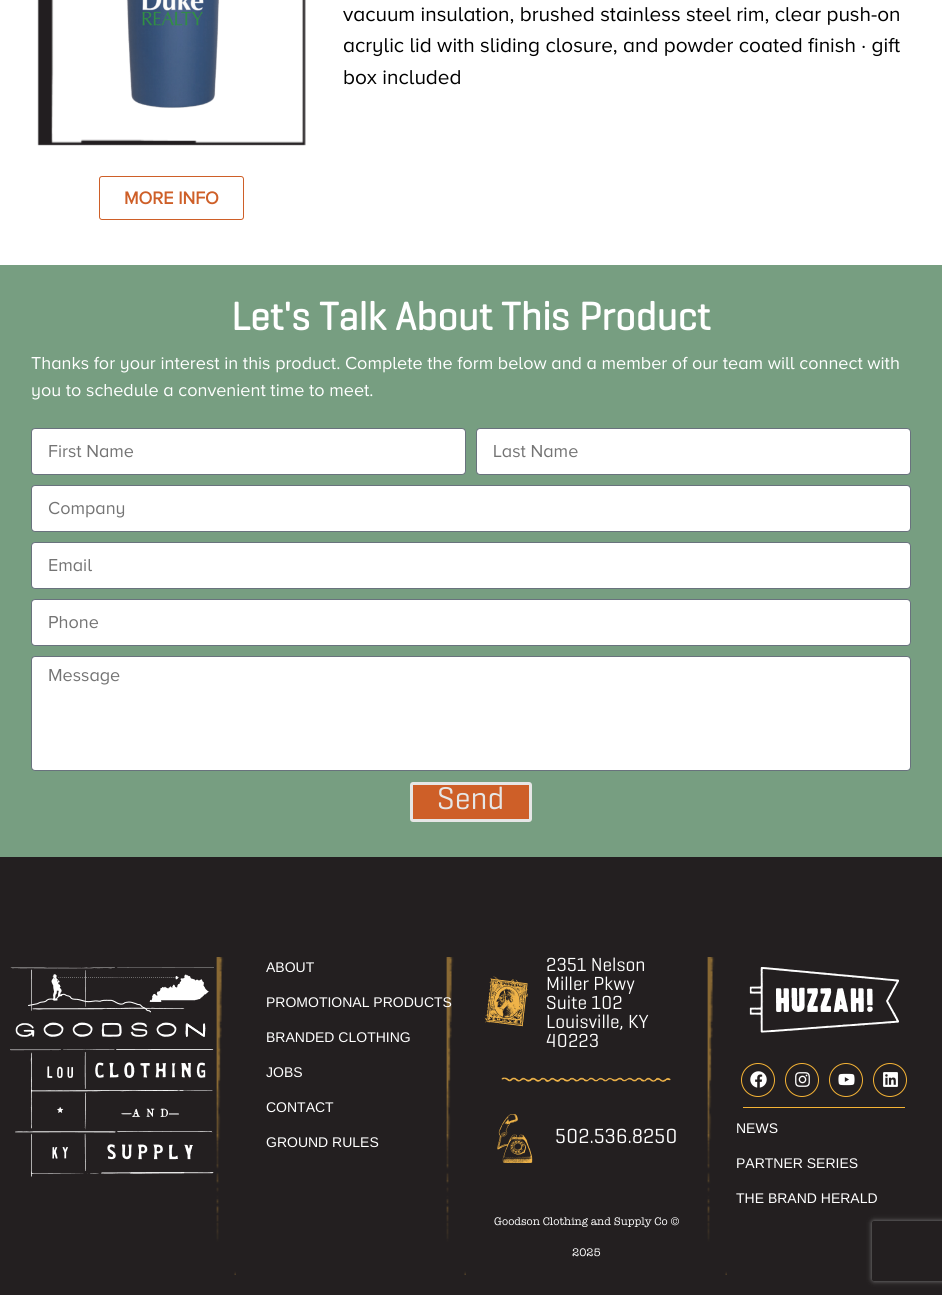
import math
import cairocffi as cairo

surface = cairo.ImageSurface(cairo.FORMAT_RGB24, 942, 1295)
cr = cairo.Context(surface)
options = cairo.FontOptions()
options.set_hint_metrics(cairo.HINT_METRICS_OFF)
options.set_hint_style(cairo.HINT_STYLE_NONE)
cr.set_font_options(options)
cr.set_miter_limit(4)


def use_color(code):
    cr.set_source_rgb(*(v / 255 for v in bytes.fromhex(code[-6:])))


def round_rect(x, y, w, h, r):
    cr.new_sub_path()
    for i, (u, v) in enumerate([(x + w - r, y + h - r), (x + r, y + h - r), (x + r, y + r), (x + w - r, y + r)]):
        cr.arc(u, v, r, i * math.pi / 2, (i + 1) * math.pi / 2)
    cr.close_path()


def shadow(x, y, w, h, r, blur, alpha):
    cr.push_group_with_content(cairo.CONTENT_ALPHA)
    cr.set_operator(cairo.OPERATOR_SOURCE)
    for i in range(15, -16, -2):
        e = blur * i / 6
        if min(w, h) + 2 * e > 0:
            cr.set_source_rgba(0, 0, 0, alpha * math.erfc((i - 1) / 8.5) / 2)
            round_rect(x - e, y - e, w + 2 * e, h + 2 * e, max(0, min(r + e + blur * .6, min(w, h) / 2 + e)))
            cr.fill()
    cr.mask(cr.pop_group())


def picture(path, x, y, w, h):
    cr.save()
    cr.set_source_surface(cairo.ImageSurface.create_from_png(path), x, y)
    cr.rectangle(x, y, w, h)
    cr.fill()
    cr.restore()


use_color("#ffffff")
cr.paint()
cr.select_font_face("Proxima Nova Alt")
cr.set_font_size(20.8)
use_color("#000000")
cr.move_to(343, 21)
cr.show_text("vacuum insulation, brushed stainless steel rim, clear push-on")
cr.move_to(343, 52)
cr.show_text("acrylic lid with sliding closure, and powder coated finish · gift")
cr.move_to(343, 84)
cr.show_text("box included")
picture("img1.png", 37, 0, 269, 146)
round_rect(99.5, 176.5, 144, 43, 2.5)
use_color("#ce5f28")
cr.set_line_width(1)
cr.stroke()
cr.select_font_face("Proxima Nova Alt", cairo.FONT_SLANT_NORMAL, cairo.FONT_WEIGHT_BOLD)
cr.set_font_size(18)
cr.move_to(124, 204)
cr.show_text("MORE INFO")
use_color("#779e81")
cr.rectangle(0, 265, 942, 592)
cr.fill()
cr.select_font_face("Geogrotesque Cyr", cairo.FONT_SLANT_NORMAL, cairo.FONT_WEIGHT_BOLD)
cr.set_font_size(40)
use_color("#ffffff")
cr.move_to(231, 330)
cr.show_text("Let's Talk About This Product")
cr.select_font_face("Proxima Nova Alt")
cr.set_font_size(18)
cr.move_to(31, 369)
cr.show_text("Thanks for your interest in this product. Complete the form below and a member of our team will connect with")
cr.move_to(31, 396)
cr.show_text("you to schedule a convenient time to meet.")
round_rect(31.5, 428.5, 434, 46, 3.5)
cr.fill_preserve()
use_color("#69727d")
cr.stroke()
use_color("#747474")
cr.move_to(48, 457)
cr.show_text("First Name")
use_color("#ffffff")
round_rect(476.5, 428.5, 434, 46, 3.5)
cr.fill_preserve()
use_color("#69727d")
cr.stroke()
use_color("#747474")
cr.move_to(493, 457)
cr.show_text("Last Name")
use_color("#ffffff")
round_rect(31.5, 485.5, 879, 46, 3.5)
cr.fill_preserve()
use_color("#69727d")
cr.stroke()
use_color("#747474")
cr.move_to(48, 514)
cr.show_text("Company")
use_color("#ffffff")
round_rect(31.5, 542.5, 879, 46, 3.5)
cr.fill_preserve()
use_color("#69727d")
cr.stroke()
use_color("#747474")
cr.move_to(48, 571)
cr.show_text("Email")
use_color("#ffffff")
round_rect(31.5, 599.5, 879, 46, 3.5)
cr.fill_preserve()
use_color("#69727d")
cr.stroke()
use_color("#747474")
cr.move_to(48, 628)
cr.show_text("Phone")
use_color("#ffffff")
round_rect(31.5, 656.5, 879, 114, 3.5)
cr.fill_preserve()
use_color("#69727d")
cr.stroke()
use_color("#747474")
cr.move_to(48, 681)
cr.show_text("Message")
use_color("#ce5f28")
round_rect(411.5, 783.5, 119, 37, 1.5)
cr.fill_preserve()
use_color("#e6e6e6")
cr.set_line_width(3)
cr.stroke()
cr.select_font_face("Geogrotesque Cyr")
cr.set_font_size(32)
cr.move_to(437, 809)
cr.show_text("Send")
use_color("#231f20")
cr.rectangle(0, 857, 942, 438)
cr.fill()
cr.save()
cr.set_fill_rule(cairo.FILL_RULE_EVEN_ODD)
cr.new_path()
cr.move_to(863, 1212)
cr.line_to(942, 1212)
cr.line_to(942, 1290)
cr.line_to(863, 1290)
cr.close_path()
cr.move_to(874, 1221)
cr.line_to(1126, 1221)
cr.curve_to(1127, 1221, 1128, 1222, 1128, 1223)
cr.line_to(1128, 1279)
cr.curve_to(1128, 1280, 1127, 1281, 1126, 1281)
cr.line_to(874, 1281)
cr.curve_to(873, 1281, 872, 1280, 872, 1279)
cr.line_to(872, 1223)
cr.curve_to(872, 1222, 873, 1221, 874, 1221)
cr.close_path()
cr.clip()
use_color("#808080")
shadow(872, 1221, 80, 60, 2, 2.5, 1)
cr.restore()
picture("img2.png", 216, 957, 20, 318)
picture("img3.png", 10, 967, 204, 210)
picture("img4.png", 446, 957, 20, 318)
cr.select_font_face("Liberation Sans")
cr.set_font_size(14)
use_color("#ffffff")
cr.move_to(266, 972)
cr.show_text("ABOUT")
cr.move_to(266, 1007)
cr.show_text("PROMOTIONAL PRODUCTS")
cr.move_to(266, 1042)
cr.show_text("BRANDED CLOTHING")
cr.move_to(266, 1077)
cr.show_text("JOBS")
cr.move_to(266, 1112)
cr.show_text("CONTACT")
cr.move_to(266, 1147)
cr.show_text("GROUND RULES")
picture("img5.png", 484, 976, 44, 51)
cr.select_font_face("Geogrotesque Cyr")
cr.set_font_size(19.25)
cr.move_to(546, 971)
cr.show_text("2351 Nelson")
cr.move_to(546, 990)
cr.show_text("Miller Pkwy")
cr.move_to(546, 1009)
cr.show_text("Suite 102")
cr.move_to(546, 1028)
cr.show_text("Louisville, KY")
cr.move_to(546, 1047)
cr.show_text("40223")
picture("img6.png", 501, 1077, 170, 5)
picture("img7.png", 497, 1114, 36, 49)
cr.set_font_size(20.8)
cr.move_to(555, 1143)
cr.show_text("502.536.8250")
cr.select_font_face("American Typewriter")
cr.set_font_size(11.25)
cr.move_to(494, 1225)
cr.show_text("Goodson Clothing and Supply Co ©")
cr.move_to(572, 1256)
cr.show_text("2025")
picture("img2.png", 707, 957, 20, 318)
picture("img8.png", 749, 967, 150, 66)
cr.arc(758, 1080, 16.5, 0, 2 * math.pi)
use_color("#f5b335")
cr.set_line_width(1)
cr.stroke()
picture("img9.png", 750, 1071, 17, 17)
cr.arc(802, 1080, 16.5, 0, 2 * math.pi)
cr.stroke()
picture("img10.png", 795, 1072, 15, 15)
cr.arc(846, 1080, 16.5, 0, 2 * math.pi)
cr.stroke()
picture("img11.png", 838, 1073, 17, 13)
cr.arc(890, 1080, 16.5, 0, 2 * math.pi)
cr.stroke()
picture("img12.png", 883, 1072, 15, 15)
cr.rectangle(743, 1107, 162, 1)
cr.fill()
cr.select_font_face("Liberation Sans")
cr.set_font_size(14)
use_color("#ffffff")
cr.move_to(736, 1133)
cr.show_text("NEWS")
cr.move_to(736, 1168)
cr.show_text("PARTNER SERIES")
cr.move_to(736, 1203)
cr.show_text("THE BRAND HERALD")
surface.write_to_png("result.png")
